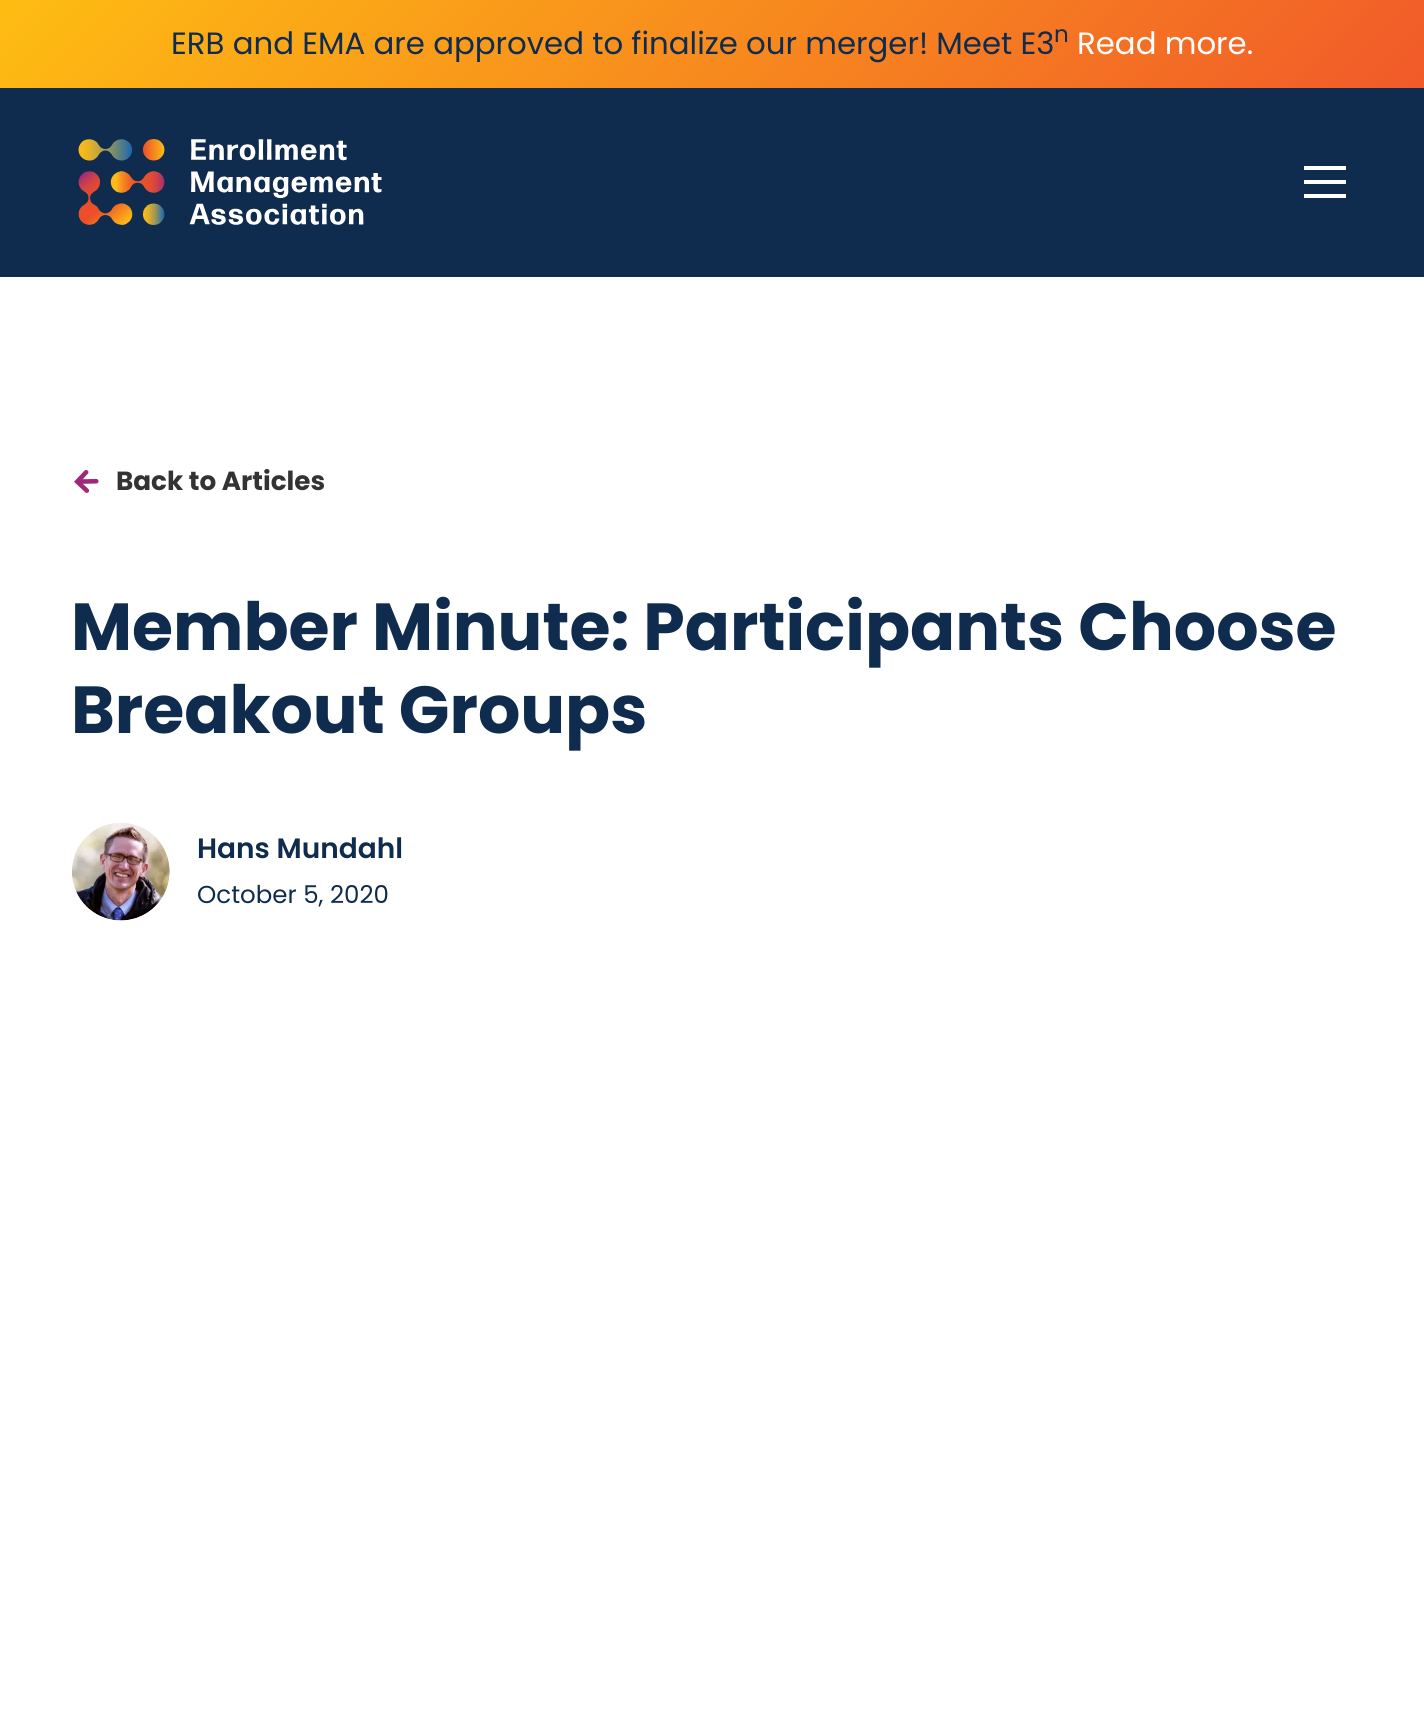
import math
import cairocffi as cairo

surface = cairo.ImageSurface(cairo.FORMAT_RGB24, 1424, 1714)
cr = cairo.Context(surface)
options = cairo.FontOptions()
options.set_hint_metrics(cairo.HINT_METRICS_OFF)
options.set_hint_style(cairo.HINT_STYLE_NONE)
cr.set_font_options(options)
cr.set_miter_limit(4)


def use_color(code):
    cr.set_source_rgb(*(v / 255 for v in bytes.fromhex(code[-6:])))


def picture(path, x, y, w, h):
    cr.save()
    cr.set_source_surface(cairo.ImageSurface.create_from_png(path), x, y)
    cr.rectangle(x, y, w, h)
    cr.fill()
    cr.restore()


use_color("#ffffff")
cr.paint()
gradient = cairo.LinearGradient(334, -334, 1090, 422)
gradient.add_color_stop_rgba(0, 0.996, 0.741, 0.071, 1)
gradient.add_color_stop_rgba(1, 0.945, 0.353, 0.161, 1)
cr.set_source(gradient)
cr.rectangle(0, 0, 1424, 88)
cr.fill()
cr.select_font_face("Poppins")
cr.set_font_size(30.8)
use_color("#0f2c4e")
cr.move_to(171, 54)
cr.show_text("ERB and EMA are approved to finalize our merger! Meet E3")
cr.set_font_size(23)
cr.move_to(1054, 42)
cr.show_text("n")
cr.set_font_size(30.8)
use_color("#ffffff")
cr.move_to(1077, 54)
cr.show_text("Read more.")
use_color("#0f2c4e")
cr.rectangle(0, 88, 1424, 189)
cr.fill()
picture("img1.png", 78, 139, 304, 86)
use_color("#ffffff")
cr.rectangle(1304, 166, 42, 4)
cr.fill()
cr.rectangle(1304, 180, 42, 4)
cr.fill()
cr.rectangle(1304, 194, 42, 4)
cr.fill()
picture("img2.png", 74, 470, 25, 23)
cr.select_font_face("Poppins", cairo.FONT_SLANT_NORMAL, cairo.FONT_WEIGHT_BOLD)
cr.set_font_size(26.25)
use_color("#333333")
cr.move_to(116, 490)
cr.show_text("Back to Articles")
cr.set_font_size(66.5)
use_color("#0f2c4e")
cr.move_to(71, 650)
cr.show_text("Member Minute: Participants Choose")
cr.move_to(71, 733)
cr.show_text("Breakout Groups")
picture("img3.png", 71, 823, 99, 98)
cr.select_font_face("Poppins SemiBold")
cr.set_font_size(28)
cr.move_to(197, 858)
cr.show_text("Hans Mundahl")
cr.select_font_face("Poppins")
cr.set_font_size(24.5)
cr.move_to(197, 903)
cr.show_text("October 5, 2020")
surface.write_to_png("result.png")
